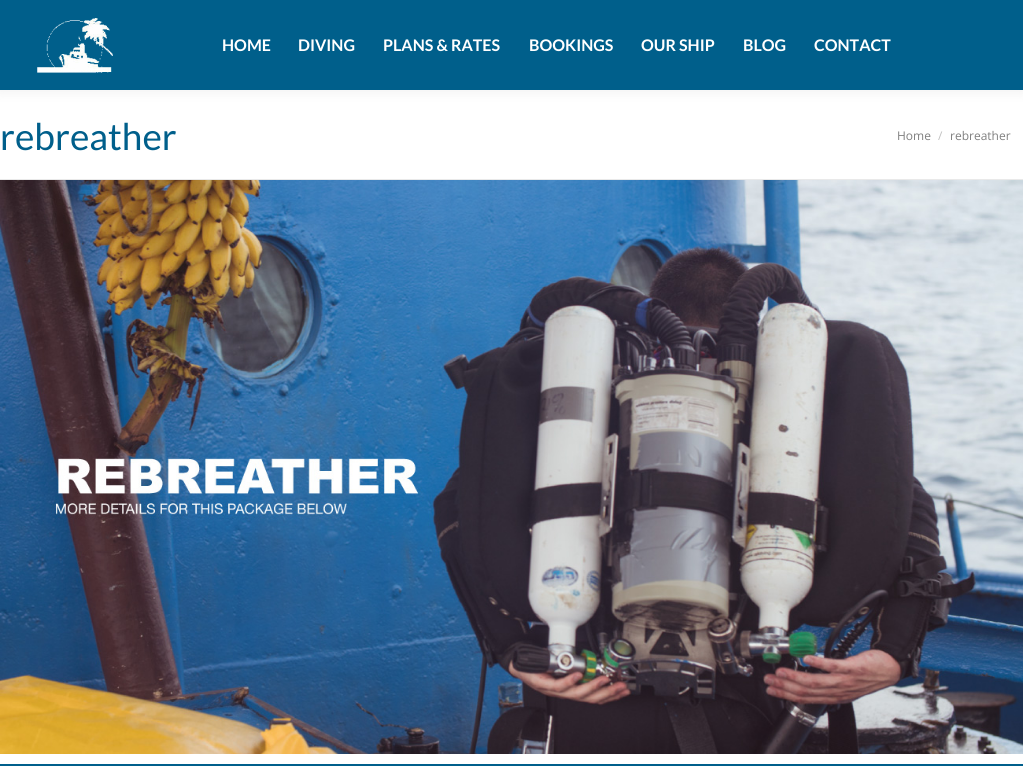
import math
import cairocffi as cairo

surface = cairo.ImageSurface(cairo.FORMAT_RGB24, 1023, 766)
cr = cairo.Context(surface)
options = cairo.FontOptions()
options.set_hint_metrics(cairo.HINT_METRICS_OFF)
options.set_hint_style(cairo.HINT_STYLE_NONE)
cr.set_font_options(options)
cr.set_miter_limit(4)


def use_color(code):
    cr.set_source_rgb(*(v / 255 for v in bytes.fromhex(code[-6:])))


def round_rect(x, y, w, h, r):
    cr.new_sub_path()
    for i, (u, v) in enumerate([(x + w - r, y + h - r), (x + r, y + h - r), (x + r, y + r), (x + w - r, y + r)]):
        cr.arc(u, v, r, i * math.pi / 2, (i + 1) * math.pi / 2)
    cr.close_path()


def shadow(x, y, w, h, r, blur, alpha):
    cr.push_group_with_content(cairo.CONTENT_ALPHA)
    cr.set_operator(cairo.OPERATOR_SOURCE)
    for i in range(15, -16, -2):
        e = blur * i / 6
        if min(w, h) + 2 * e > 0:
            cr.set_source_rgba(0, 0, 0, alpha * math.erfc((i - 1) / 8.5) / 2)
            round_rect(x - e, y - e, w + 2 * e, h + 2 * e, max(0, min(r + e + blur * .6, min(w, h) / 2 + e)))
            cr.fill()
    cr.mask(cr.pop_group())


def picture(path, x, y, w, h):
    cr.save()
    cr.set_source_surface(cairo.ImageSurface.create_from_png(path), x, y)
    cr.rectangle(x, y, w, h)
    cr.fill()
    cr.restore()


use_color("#ffffff")
cr.paint()
use_color("#000000")
shadow(-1, -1, 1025, 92, 0, 7.5, 0.07)
use_color("#005f8b")
cr.rectangle(0, 0, 1023, 90)
cr.fill()
picture("img1.png", 37, 18, 76, 55)
cr.select_font_face("Lato", cairo.FONT_SLANT_NORMAL, cairo.FONT_WEIGHT_BOLD)
cr.set_font_size(16)
use_color("#ffffff")
cr.move_to(222, 51)
cr.show_text("HOME")
cr.move_to(298, 51)
cr.show_text("DIVING")
cr.move_to(383, 51)
cr.show_text("PLANS & RATES")
cr.move_to(529, 51)
cr.show_text("BOOKINGS")
cr.move_to(641, 51)
cr.show_text("OUR SHIP")
cr.move_to(743, 51)
cr.show_text("BLOG")
cr.move_to(814, 51)
cr.show_text("CONTACT")
cr.select_font_face("Lato")
cr.set_font_size(37)
use_color("#005f8b")
cr.move_to(0, 150)
cr.show_text("rebreather")
cr.select_font_face("Open Sans")
cr.set_font_size(12)
use_color("#808080")
cr.move_to(897, 140)
cr.show_text("Home")
use_color("#c0c0c0")
cr.move_to(938, 140)
cr.show_text("/")
use_color("#808080")
cr.move_to(950, 140)
cr.show_text("rebreather")
use_color("#e9e9e9")
cr.rectangle(0, 179, 1023, 1)
cr.fill()
picture("img2.png", 0, 180, 1023, 574)
use_color("#005f8b")
cr.rectangle(0, 764, 1023, 2)
cr.fill()
surface.write_to_png("result.png")
